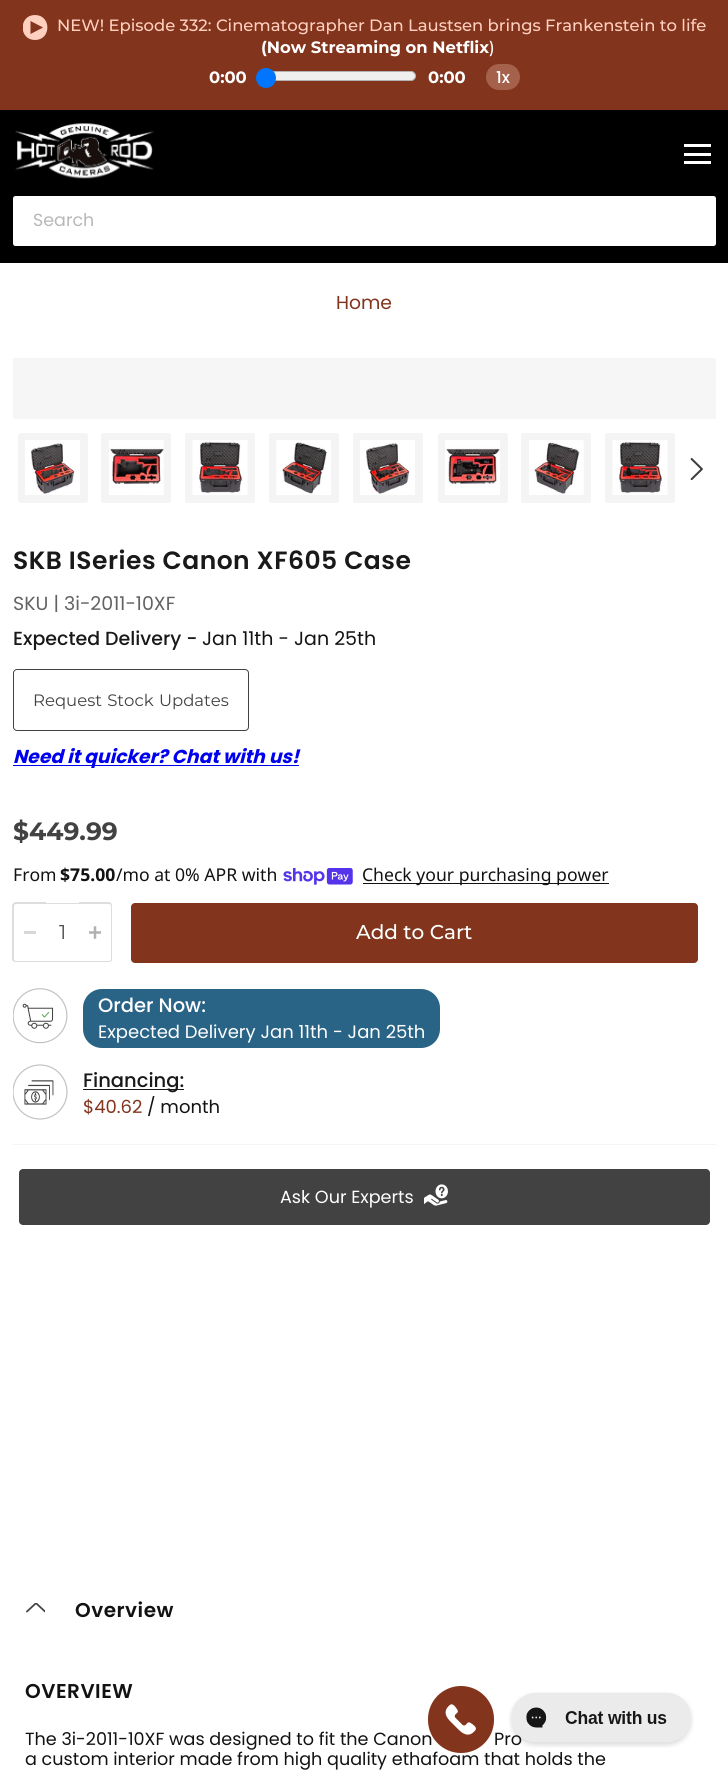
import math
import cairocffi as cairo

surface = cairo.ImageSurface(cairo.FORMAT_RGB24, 728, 1776)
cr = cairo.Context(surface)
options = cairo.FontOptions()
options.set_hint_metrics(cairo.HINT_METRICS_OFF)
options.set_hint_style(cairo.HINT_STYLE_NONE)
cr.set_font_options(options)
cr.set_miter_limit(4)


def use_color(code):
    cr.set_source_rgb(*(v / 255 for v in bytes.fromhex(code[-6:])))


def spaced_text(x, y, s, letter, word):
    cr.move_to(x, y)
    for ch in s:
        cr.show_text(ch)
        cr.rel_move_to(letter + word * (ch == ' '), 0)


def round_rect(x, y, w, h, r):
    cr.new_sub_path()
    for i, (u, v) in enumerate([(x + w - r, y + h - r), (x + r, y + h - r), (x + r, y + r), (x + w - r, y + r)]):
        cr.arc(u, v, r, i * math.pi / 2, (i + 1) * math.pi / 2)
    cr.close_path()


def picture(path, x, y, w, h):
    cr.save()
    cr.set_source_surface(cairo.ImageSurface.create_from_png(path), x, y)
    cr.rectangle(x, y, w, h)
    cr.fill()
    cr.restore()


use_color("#ffffff")
cr.paint()
use_color("#82341c")
cr.rectangle(0, 0, 728, 110)
cr.fill()
cr.save()
cr.rectangle(23, 15, 25, 25)
cr.clip()
use_color("#ffcfbf")
cr.new_path()
cr.move_to(35, 15)
cr.curve_to(18.5, 15, 18.5, 40, 35, 40)
cr.curve_to(51.5, 40, 51.5, 15, 35, 15)
cr.close_path()
cr.move_to(30.5, 34)
cr.line_to(30.5, 21)
cr.line_to(43, 27.5)
cr.close_path()
cr.fill()
cr.restore()
cr.select_font_face("Montserrat Medium")
cr.set_font_size(16.4)
use_color("#ffcfbf")
cr.move_to(57, 31)
cr.show_text("NEW! Episode 332: Cinematographer Dan Laustsen brings Frankenstein to life")
cr.select_font_face("Montserrat", cairo.FONT_SLANT_NORMAL, cairo.FONT_WEIGHT_BOLD)
use_color("#ffffff")
cr.move_to(261, 53)
cr.show_text("(Now Streaming on Netflix")
cr.select_font_face("Montserrat Medium")
cr.move_to(489, 53)
cr.show_text(")")
cr.select_font_face("Montserrat", cairo.FONT_SLANT_NORMAL, cairo.FONT_WEIGHT_BOLD)
cr.move_to(209, 83)
cr.show_text("0:00")
use_color("#efefef")
round_rect(258.5, 71.5, 157, 9, 4.5)
cr.fill_preserve()
use_color("#b2b2b2")
cr.set_line_width(1)
cr.stroke()
use_color("#0075ff")
cr.arc(266, 78, 10, 0, 2 * math.pi)
cr.fill()
use_color("#ffffff")
cr.move_to(428, 83)
cr.show_text("0:00")
use_color("#a5614b")
round_rect(486, 64, 34, 26, 13)
cr.fill()
cr.select_font_face("Poppins Medium")
use_color("#ffffff")
cr.move_to(496, 83)
cr.show_text("1x")
use_color("#000000")
cr.rectangle(0, 110, 728, 153)
cr.fill()
picture("img1.png", 15, 123, 139, 56)
use_color("#ffffff")
cr.rectangle(684, 144, 27, 3)
cr.fill()
cr.rectangle(684, 153, 27, 3)
cr.fill()
cr.rectangle(684, 161, 27, 3)
cr.fill()
round_rect(13, 196, 703, 50, 2.5)
cr.fill()
cr.select_font_face("Poppins")
cr.set_font_size(17.5)
use_color("#b8b8b8")
cr.move_to(33, 226)
cr.show_text("Search")
cr.set_font_size(18.75)
use_color("#82341c")
cr.move_to(336, 309)
cr.show_text("Home")
use_color("#f6f6f6")
cr.rectangle(13, 358, 703, 61)
cr.fill()
use_color("#f4f4f4")
round_rect(18, 433, 70, 70, 2.5)
cr.fill()
picture("img2.png", 25, 440, 55, 55)
round_rect(101, 433, 70, 70, 2.5)
cr.fill()
picture("img3.png", 109, 440, 55, 55)
round_rect(185, 433, 70, 70, 2.5)
cr.fill()
picture("img4.png", 192, 440, 56, 55)
round_rect(269, 433, 70, 70, 2.5)
cr.fill()
picture("img5.png", 276, 440, 55, 55)
round_rect(353, 433, 70, 70, 2.5)
cr.fill()
picture("img6.png", 360, 440, 55, 55)
round_rect(438, 433, 70, 70, 2.5)
cr.fill()
picture("img7.png", 445, 440, 55, 55)
round_rect(521, 433, 70, 70, 2.5)
cr.fill()
picture("img8.png", 529, 440, 55, 55)
round_rect(605, 433, 70, 70, 2.5)
cr.fill()
picture("img9.png", 612, 440, 56, 55)
picture("img10.png", 690, 458, 13, 22)
cr.rectangle(13, 1144, 703, 1)
cr.fill()
cr.select_font_face("Poppins SemiBold")
cr.set_font_size(25)
use_color("#191919")
spaced_text(13, 569, "SKB ISeries Canon XF605 Case", 0.5, 0)
cr.select_font_face("Poppins")
cr.set_font_size(19)
use_color("#636363")
cr.move_to(13, 610)
cr.show_text("SKU | 3i-2011-10XF")
cr.select_font_face("Poppins Medium")
use_color("#191919")
cr.move_to(13, 645)
cr.show_text("Expected Delivery -")
cr.select_font_face("Poppins")
use_color("#121212")
cr.move_to(202, 645)
cr.show_text("Jan 11th - Jan 25th")
round_rect(13.5, 669.5, 235, 61, 3.5)
use_color("#424242")
cr.stroke()
cr.select_font_face("Montserrat")
cr.set_font_size(16.5)
spaced_text(33, 706, "Request Stock Updates", 0, 1)
use_color("#0000ee")
cr.rectangle(13, 765, 286, 1)
cr.fill()
cr.select_font_face("Poppins", cairo.FONT_SLANT_ITALIC, cairo.FONT_WEIGHT_BOLD)
cr.set_font_size(18.75)
cr.move_to(13, 763)
cr.show_text("Need it quicker? Chat with us!")
cr.select_font_face("Montserrat", cairo.FONT_SLANT_NORMAL, cairo.FONT_WEIGHT_BOLD)
cr.set_font_size(25)
use_color("#424242")
cr.move_to(13, 840)
cr.show_text("$449.99")
cr.select_font_face("Noto Sans")
cr.set_font_size(17.6)
use_color("#121212")
cr.move_to(13, 881)
cr.show_text("From")
cr.select_font_face("Noto Sans", cairo.FONT_SLANT_NORMAL, cairo.FONT_WEIGHT_BOLD)
cr.move_to(60, 881)
cr.show_text("$75.00")
cr.select_font_face("Noto Sans")
cr.move_to(116, 881)
cr.show_text("/mo at 0% APR with")
picture("img11.png", 283, 868, 70, 17)
cr.rectangle(363, 883, 246, 1)
cr.fill()
cr.move_to(362, 881)
cr.show_text("Check your purchasing power")
use_color("#dddddd")
cr.set_fill_rule(cairo.FILL_RULE_EVEN_ODD)
cr.new_path()
cr.move_to(16, 902)
cr.line_to(46, 902)
cr.line_to(46, 962)
cr.line_to(16, 962)
cr.curve_to(14, 962, 12, 961, 12, 959)
cr.line_to(12, 906)
cr.curve_to(12, 904, 14, 902, 16, 902)
cr.close_path()
cr.move_to(16, 904)
cr.line_to(46, 904)
cr.line_to(46, 961)
cr.line_to(16, 961)
cr.curve_to(15, 961, 14, 960, 14, 959)
cr.line_to(14, 906)
cr.curve_to(14, 905, 15, 904, 16, 904)
cr.close_path()
cr.fill()
use_color("#d8d8d8")
cr.rectangle(24, 931, 12, 3)
cr.fill()
use_color("#dddddd")
cr.rectangle(46, 903, 33, 1)
cr.fill()
cr.rectangle(46, 961, 33, 1)
cr.fill()
cr.select_font_face("Montserrat")
cr.set_font_size(20)
use_color("#4d4d4d")
cr.move_to(59, 939)
cr.show_text("1")
use_color("#dddddd")
cr.new_path()
cr.move_to(79, 902)
cr.line_to(109, 902)
cr.curve_to(111, 902, 112, 904, 112, 906)
cr.line_to(112, 959)
cr.curve_to(112, 961, 111, 962, 109, 962)
cr.line_to(79, 962)
cr.close_path()
cr.move_to(79, 904)
cr.line_to(109, 904)
cr.curve_to(110, 904, 111, 905, 111, 906)
cr.line_to(111, 959)
cr.curve_to(111, 960, 110, 961, 109, 961)
cr.line_to(79, 961)
cr.close_path()
cr.fill()
picture("img12.png", 89, 926, 12, 13)
use_color("#82341c")
round_rect(131, 903, 567, 60, 4)
cr.fill()
cr.select_font_face("Montserrat Medium")
use_color("#ffffff")
cr.move_to(356, 939)
cr.show_text("Add to Cart")
picture("img13.png", 13, 988, 55, 56)
use_color("#296487")
round_rect(83, 989, 357, 59, 19)
cr.fill()
cr.select_font_face("Poppins Medium")
cr.set_font_size(19.5)
use_color("#ffffff")
cr.move_to(98, 1012)
cr.show_text("Order Now:")
cr.select_font_face("Poppins")
cr.set_font_size(18)
cr.move_to(98, 1038)
cr.show_text("Expected Delivery Jan 11th - Jan 25th")
picture("img14.png", 13, 1064, 55, 56)
use_color("#191919")
cr.rectangle(83, 1089, 101, 1)
cr.fill()
cr.select_font_face("Poppins Medium")
cr.set_font_size(19.5)
cr.move_to(83, 1087)
cr.show_text("Financing:")
cr.select_font_face("Poppins")
cr.set_font_size(18)
use_color("#82341c")
cr.move_to(83, 1113)
cr.show_text("$40.62")
use_color("#121212")
cr.move_to(147, 1113)
cr.show_text("/ month")
use_color("#424242")
round_rect(19, 1169, 691, 56, 4)
cr.fill()
cr.set_font_size(17.6)
use_color("#ffffff")
cr.move_to(280, 1203)
cr.show_text("Ask Our Experts")
picture("img15.png", 424, 1184, 24, 22)
picture("img16.png", 26, 1603, 19, 10)
cr.select_font_face("Poppins SemiBold")
cr.set_font_size(20)
use_color("#121212")
spaced_text(75, 1617, "Overview", 0.5, 0)
spaced_text(25, 1698, "OVERVIEW", 0.5, 0)
cr.select_font_face("Poppins")
cr.set_font_size(17.6)
cr.move_to(25, 1745)
cr.show_text("The 3i-2011-10XF was designed to fit the Canon")
cr.move_to(494, 1745)
cr.show_text("Pro")
cr.move_to(25, 1765)
cr.show_text("a custom interior made from high quality ethafoam that holds the")
use_color("#82341c")
round_rect(428, 1686, 66, 67, 33)
cr.fill()
picture("img17.png", 445, 1704, 31, 31)
picture("img18.png", 509, 1692, 185, 56)
surface.write_to_png("result.png")
